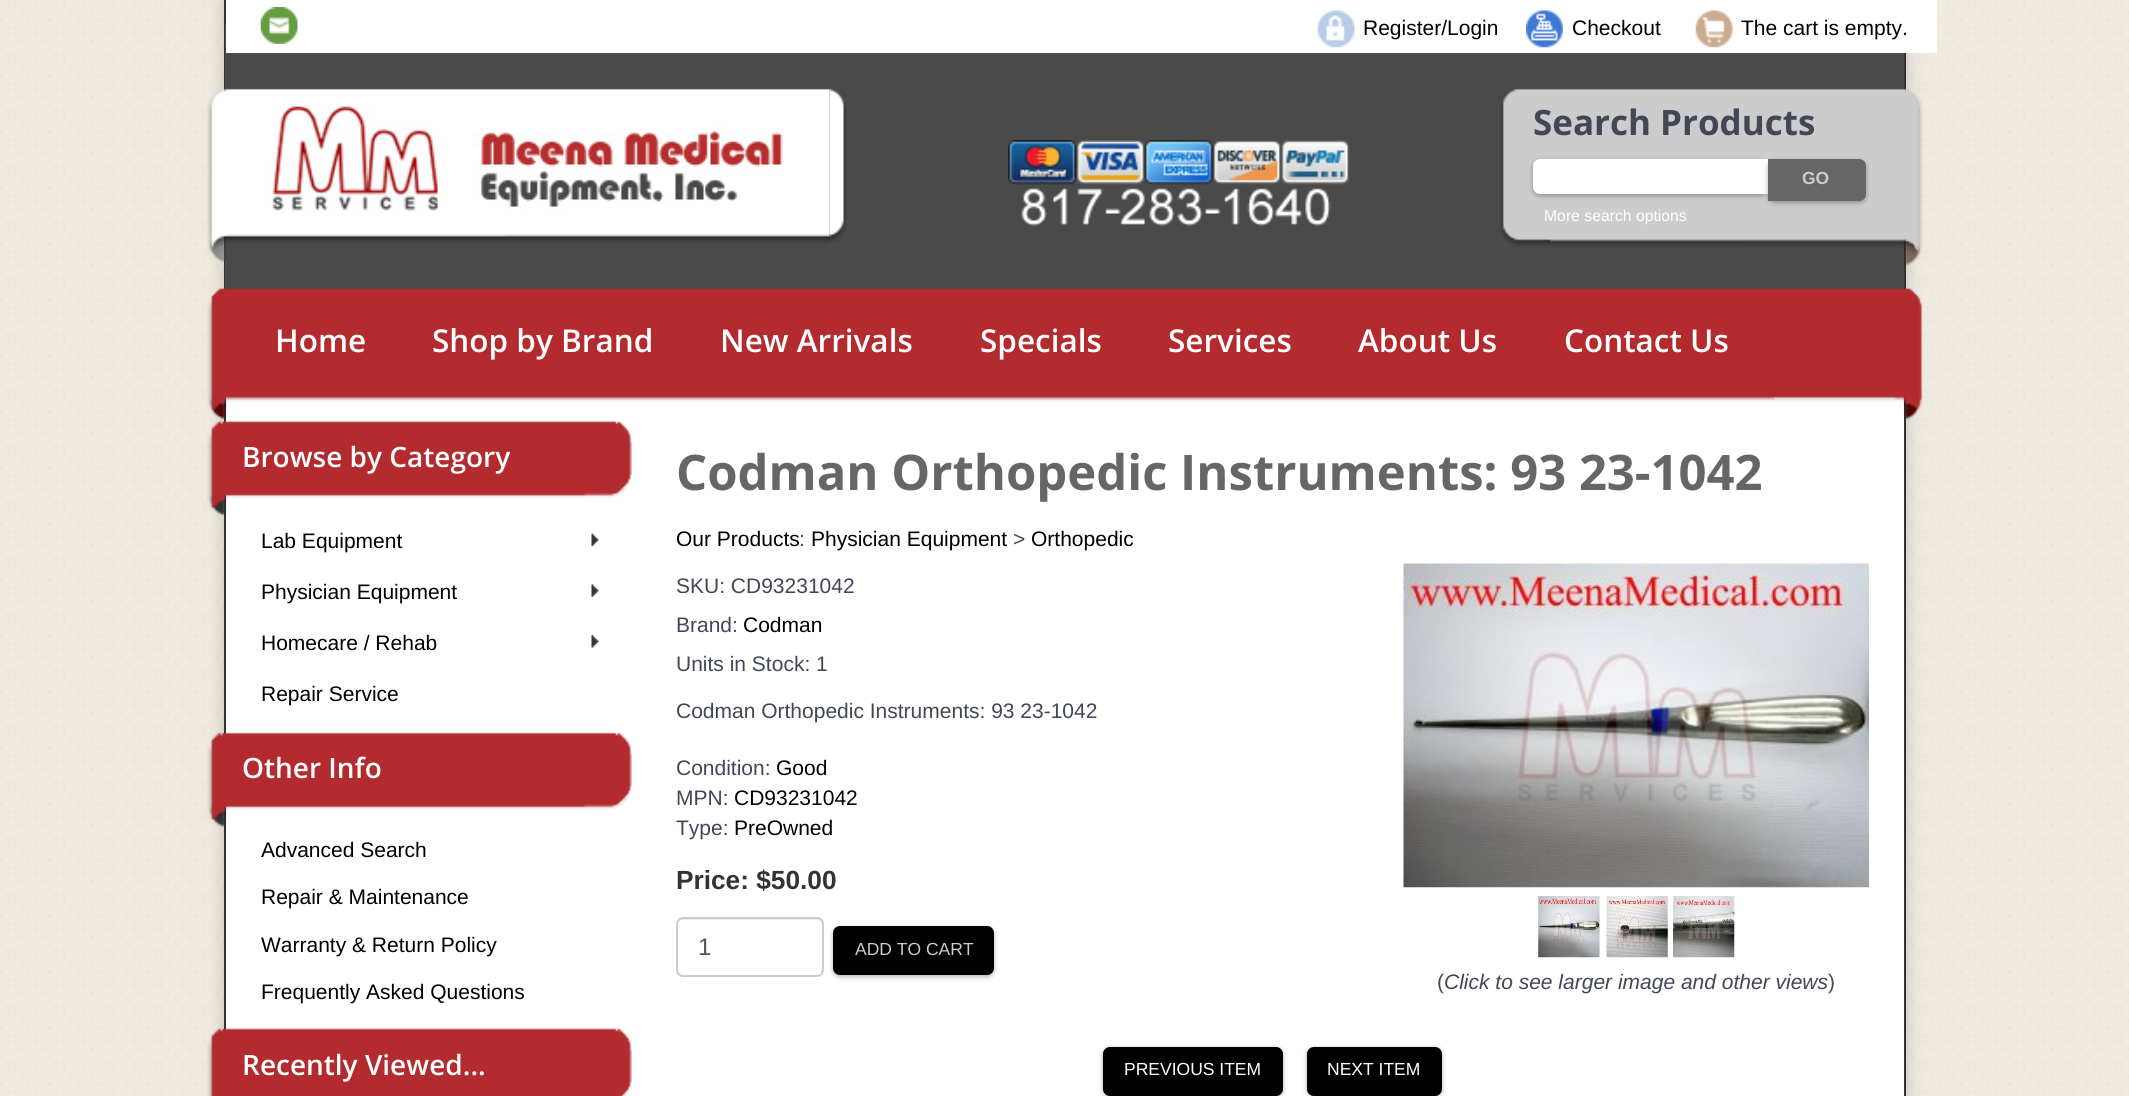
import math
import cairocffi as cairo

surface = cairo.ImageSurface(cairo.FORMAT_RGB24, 2129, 1096)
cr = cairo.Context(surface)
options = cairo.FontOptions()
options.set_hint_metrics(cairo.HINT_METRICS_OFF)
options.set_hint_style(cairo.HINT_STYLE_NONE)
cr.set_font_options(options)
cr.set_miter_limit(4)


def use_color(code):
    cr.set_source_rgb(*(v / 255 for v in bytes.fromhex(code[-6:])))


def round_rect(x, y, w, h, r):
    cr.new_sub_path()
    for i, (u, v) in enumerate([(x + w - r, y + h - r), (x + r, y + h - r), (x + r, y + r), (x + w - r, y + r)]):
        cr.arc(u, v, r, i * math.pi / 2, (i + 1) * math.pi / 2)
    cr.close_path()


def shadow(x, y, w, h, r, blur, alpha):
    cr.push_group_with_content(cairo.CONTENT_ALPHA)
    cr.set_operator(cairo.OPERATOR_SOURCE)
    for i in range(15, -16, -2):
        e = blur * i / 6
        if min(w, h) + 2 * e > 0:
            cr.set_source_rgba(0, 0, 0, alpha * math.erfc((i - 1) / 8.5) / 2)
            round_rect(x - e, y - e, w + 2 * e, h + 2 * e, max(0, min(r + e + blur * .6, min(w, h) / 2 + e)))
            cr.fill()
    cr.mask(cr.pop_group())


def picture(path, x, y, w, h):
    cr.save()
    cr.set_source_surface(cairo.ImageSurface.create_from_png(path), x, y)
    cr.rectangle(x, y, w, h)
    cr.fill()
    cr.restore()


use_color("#f0ebe2")
cr.paint()
picture("img1.png", 0, 0, 2129, 1093)
use_color("#000000")
shadow(224, 0, 1682, 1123, 0, 9, 0.2)
use_color("#ffffff")
cr.rectangle(226, 396, 1678, 700)
cr.fill()
use_color("#333333")
cr.rectangle(1904, 53, 2, 1043)
cr.fill()
cr.rectangle(224, 0, 2, 1030)
cr.fill()
use_color("#4a4a4a")
cr.rectangle(225, 24, 1679, 266)
cr.fill()
use_color("#ffffff")
cr.rectangle(226, 0, 1711, 53)
cr.fill()
picture("img2.png", 260, 7, 38, 37)
picture("img3.png", 1317, 10, 38, 38)
cr.select_font_face("Liberation Sans")
cr.set_font_size(21)
use_color("#000000")
cr.move_to(1363, 35)
cr.show_text("Register/Login")
picture("img4.png", 1526, 10, 37, 38)
cr.move_to(1572, 35)
cr.show_text("Checkout")
picture("img5.png", 1695, 10, 38, 38)
cr.move_to(1741, 35)
cr.show_text("The cart is empty.")
picture("img6.png", 207, 88, 623, 174)
picture("img7.png", 265, 105, 519, 106)
picture("img8.png", 829, 88, 18, 154)
picture("img9.png", 1008, 140, 342, 45)
picture("img10.png", 1021, 188, 310, 39)
picture("img11.png", 1500, 88, 423, 178)
cr.select_font_face("Open Sans", cairo.FONT_SLANT_NORMAL, cairo.FONT_WEIGHT_BOLD)
cr.set_font_size(35)
use_color("#424657")
cr.move_to(1533, 135)
cr.show_text("Search Products")
use_color("#000000")
shadow(1533, 161, 235, 35, 7, 2.5, 0.3)
use_color("#ffffff")
cr.new_path()
cr.move_to(1540, 159)
cr.line_to(1768, 159)
cr.line_to(1768, 194)
cr.line_to(1540, 194)
cr.curve_to(1536, 194, 1533, 191, 1533, 187)
cr.line_to(1533, 166)
cr.curve_to(1533, 162, 1536, 159, 1540, 159)
cr.close_path()
cr.fill()
use_color("#000000")
shadow(1768, 161, 98, 42, 7, 2.5, 0.3)
use_color("#666666")
cr.new_path()
cr.move_to(1768, 159)
cr.line_to(1859, 159)
cr.curve_to(1863, 159, 1866, 162, 1866, 166)
cr.line_to(1866, 194)
cr.curve_to(1866, 198, 1863, 201, 1859, 201)
cr.line_to(1768, 201)
cr.close_path()
cr.fill()
cr.select_font_face("Liberation Sans", cairo.FONT_SLANT_NORMAL, cairo.FONT_WEIGHT_BOLD)
cr.set_font_size(17.5)
use_color("#cccccc")
cr.move_to(1802, 184)
cr.show_text("GO")
cr.select_font_face("Liberation Sans")
cr.set_font_size(15.75)
use_color("#ffffff")
cr.move_to(1544, 221)
cr.show_text("More search options")
picture("img12.png", 207, 288, 1716, 132)
cr.select_font_face("Open Sans SemiBold")
cr.set_font_size(31.5)
cr.move_to(275, 352)
cr.show_text("Home")
cr.move_to(432, 352)
cr.show_text("Shop by Brand")
cr.move_to(720, 352)
cr.show_text("New Arrivals")
cr.move_to(980, 352)
cr.show_text("Specials")
cr.move_to(1168, 352)
cr.show_text("Services")
cr.move_to(1358, 352)
cr.show_text("About Us")
cr.move_to(1564, 352)
cr.show_text("Contact Us")
picture("img13.png", 207, 420, 425, 96)
cr.set_font_size(28)
cr.move_to(242, 467)
cr.show_text("Browse by Category")
cr.select_font_face("Liberation Sans")
cr.set_font_size(21)
use_color("#000000")
cr.move_to(261, 548)
cr.show_text("Lab Equipment")
picture("img14.png", 591, 533, 8, 13)
cr.move_to(261, 599)
cr.show_text("Physician Equipment")
picture("img15.png", 591, 584, 8, 13)
cr.move_to(261, 650)
cr.show_text("Homecare / Rehab")
picture("img16.png", 591, 635, 8, 13)
cr.move_to(261, 701)
cr.show_text("Repair Service")
picture("img17.png", 207, 732, 425, 96)
cr.select_font_face("Open Sans SemiBold")
cr.set_font_size(28)
use_color("#ffffff")
cr.move_to(242, 778)
cr.show_text("Other Info")
cr.select_font_face("Liberation Sans")
cr.set_font_size(21)
use_color("#000000")
cr.move_to(261, 857)
cr.show_text("Advanced Search")
cr.move_to(261, 904)
cr.show_text("Repair & Maintenance")
cr.move_to(261, 952)
cr.show_text("Warranty & Return Policy")
cr.move_to(261, 999)
cr.show_text("Frequently Asked Questions")
picture("img18.png", 207, 1027, 425, 69)
cr.select_font_face("Open Sans SemiBold")
cr.set_font_size(28)
use_color("#ffffff")
cr.move_to(242, 1075)
cr.show_text("Recently Viewed...")
cr.select_font_face("Open Sans", cairo.FONT_SLANT_NORMAL, cairo.FONT_WEIGHT_BOLD)
cr.set_font_size(49)
use_color("#666666")
cr.move_to(676, 490)
cr.show_text("Codman Orthopedic Instruments: 93 23-1042")
cr.select_font_face("Liberation Sans")
cr.set_font_size(21)
use_color("#000000")
cr.move_to(676, 546)
cr.show_text("Our Products")
use_color("#424657")
cr.move_to(799, 546)
cr.show_text(":")
use_color("#000000")
cr.move_to(811, 546)
cr.show_text("Physician Equipment")
use_color("#424657")
cr.move_to(1013, 546)
cr.show_text(">")
use_color("#000000")
cr.move_to(1031, 546)
cr.show_text("Orthopedic")
use_color("#424657")
cr.move_to(676, 593)
cr.show_text("SKU: CD93231042")
cr.move_to(676, 632)
cr.show_text("Brand:")
use_color("#000000")
cr.move_to(743, 632)
cr.show_text("Codman")
use_color("#424657")
cr.move_to(676, 671)
cr.show_text("Units in Stock: 1")
cr.move_to(676, 718)
cr.show_text("Codman Orthopedic Instruments: 93 23-1042")
cr.move_to(676, 775)
cr.show_text("Condition:")
use_color("#000000")
cr.move_to(776, 775)
cr.show_text("Good")
use_color("#424657")
cr.move_to(676, 805)
cr.show_text("MPN:")
use_color("#000000")
cr.move_to(734, 805)
cr.show_text("CD93231042")
use_color("#424657")
cr.move_to(676, 835)
cr.show_text("Type:")
use_color("#000000")
cr.move_to(734, 835)
cr.show_text("PreOwned")
cr.select_font_face("Liberation Sans", cairo.FONT_SLANT_NORMAL, cairo.FONT_WEIGHT_BOLD)
cr.set_font_size(26.25)
use_color("#333333")
cr.move_to(676, 889)
cr.show_text("Price: $50.00")
use_color("#ececec")
cr.new_path()
cr.move_to(682, 920)
cr.line_to(817, 920)
cr.curve_to(820, 920, 822, 923, 822, 926)
cr.line_to(822, 971)
cr.line_to(821, 974)
cr.curve_to(822, 973, 823, 971, 823, 970)
cr.line_to(823, 924)
cr.curve_to(823, 921, 821, 919, 818, 919)
cr.line_to(682, 919)
cr.curve_to(679, 919, 677, 921, 677, 924)
cr.line_to(677, 926)
cr.curve_to(677, 923, 680, 920, 682, 920)
cr.close_path()
cr.fill()
round_rect(677, 918, 146, 58, 6)
use_color("#cccccc")
cr.stroke()
cr.select_font_face("Liberation Sans")
cr.set_font_size(24)
use_color("#555555")
cr.move_to(698, 955)
cr.show_text("1")
use_color("#000000")
shadow(833, 928, 161, 49, 7, 2.5, 0.3)
use_color("#000000")
round_rect(833, 926, 161, 49, 7)
cr.fill()
cr.set_font_size(17.5)
use_color("#cccccc")
cr.move_to(855, 955)
cr.show_text("ADD TO CART")
picture("img19.png", 1403, 563, 466, 325)
picture("img20.png", 1538, 896, 62, 62)
picture("img21.png", 1606, 896, 62, 62)
picture("img22.png", 1673, 896, 62, 62)
cr.set_font_size(21)
use_color("#424657")
cr.move_to(1437, 989)
cr.show_text("(")
cr.select_font_face("Liberation Sans", cairo.FONT_SLANT_ITALIC)
cr.move_to(1444, 989)
cr.show_text("Click to see larger image and other views")
cr.select_font_face("Liberation Sans")
cr.move_to(1828, 989)
cr.show_text(")")
use_color("#000000")
shadow(1103, 1048, 180, 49, 7, 2.5, 0.3)
use_color("#000000")
round_rect(1103, 1047, 180, 49, 7)
cr.fill()
cr.set_font_size(17.5)
use_color("#ffffff")
cr.move_to(1124, 1075)
cr.show_text("PREVIOUS ITEM")
use_color("#000000")
shadow(1307, 1048, 135, 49, 7, 2.5, 0.3)
use_color("#000000")
round_rect(1307, 1047, 135, 49, 7)
cr.fill()
use_color("#ffffff")
cr.move_to(1327, 1075)
cr.show_text("NEXT ITEM")
surface.write_to_png("result.png")
